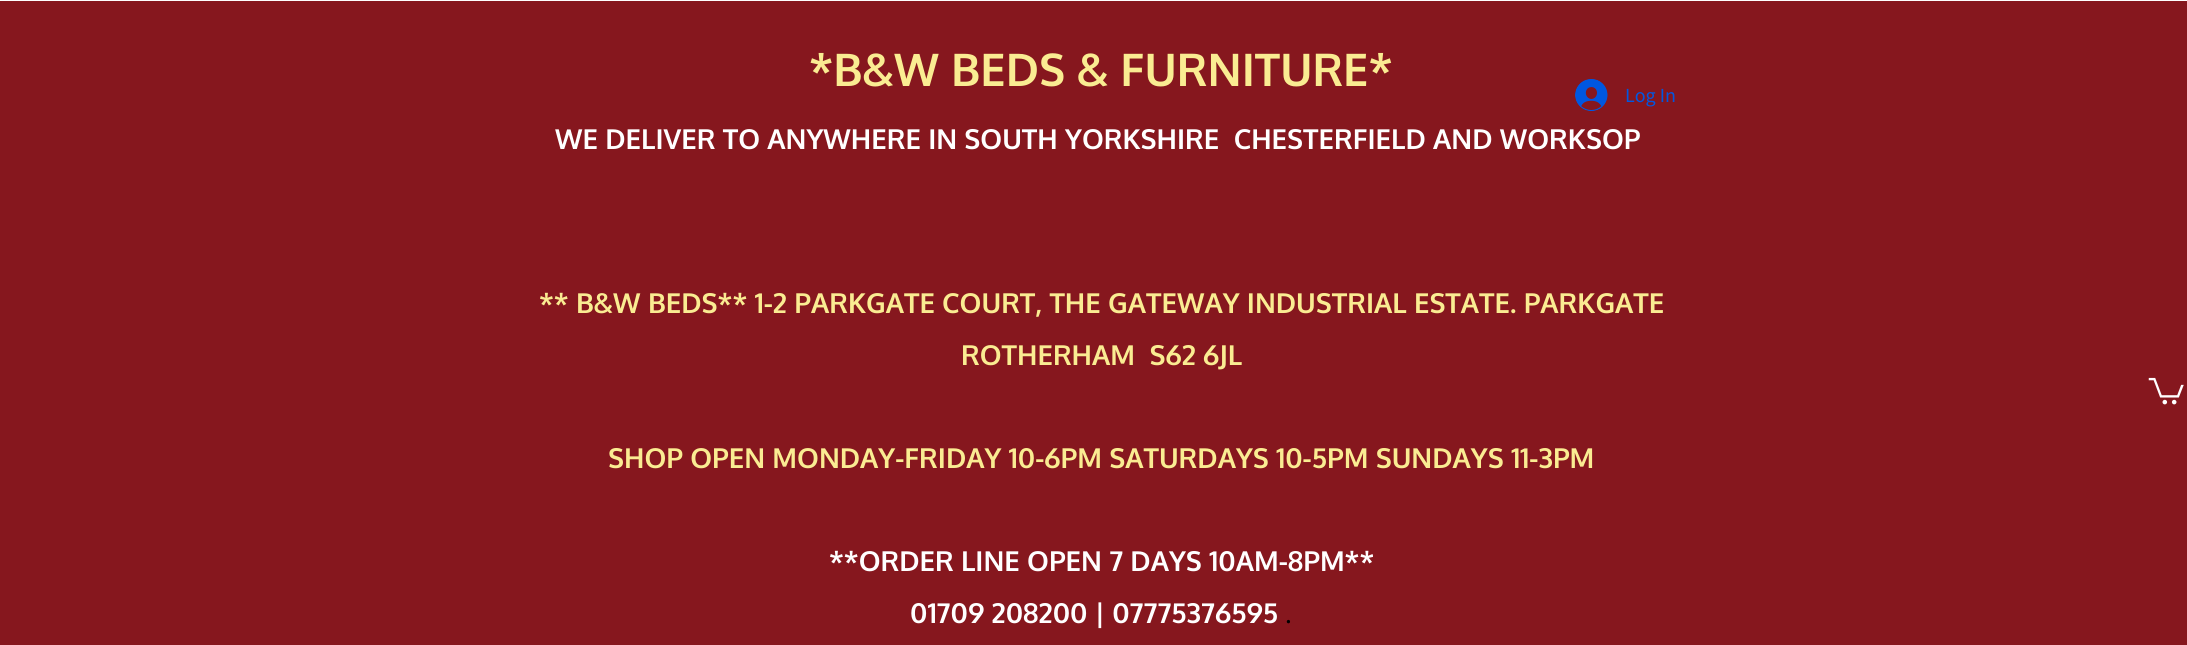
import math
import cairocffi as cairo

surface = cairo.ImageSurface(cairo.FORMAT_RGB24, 2187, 645)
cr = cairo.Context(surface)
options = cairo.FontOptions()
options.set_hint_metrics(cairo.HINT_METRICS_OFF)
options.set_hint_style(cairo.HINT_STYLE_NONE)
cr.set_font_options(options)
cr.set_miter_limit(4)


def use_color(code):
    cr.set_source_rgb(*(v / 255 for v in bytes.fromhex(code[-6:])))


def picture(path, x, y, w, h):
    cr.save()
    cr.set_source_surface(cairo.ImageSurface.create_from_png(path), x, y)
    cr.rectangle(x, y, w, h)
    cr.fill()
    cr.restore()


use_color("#ffffff")
cr.paint()
use_color("#86171e")
cr.rectangle(0, 1, 2187, 644)
cr.fill()
cr.select_font_face("Oxygen", cairo.FONT_SLANT_NORMAL, cairo.FONT_WEIGHT_BOLD)
cr.set_font_size(45)
use_color("#faec92")
cr.move_to(809, 86)
cr.show_text("*B&W BEDS & FURNITURE*")
cr.set_font_size(27.5)
use_color("#ffffff")
cr.move_to(555, 149)
cr.show_text("WE DELIVER TO ANYWHERE IN SOUTH YORKSHIRE  CHESTERFIELD AND WORKSOP")
use_color("#faec92")
cr.move_to(539, 313)
cr.show_text("** B&W BEDS** 1-2 PARKGATE COURT, THE GATEWAY INDUSTRIAL ESTATE. PARKGATE")
cr.move_to(961, 365)
cr.show_text("ROTHERHAM  S62 6JL")
cr.move_to(608, 468)
cr.show_text("SHOP OPEN MONDAY-FRIDAY 10-6PM SATURDAYS 10-5PM SUNDAYS 11-3PM")
use_color("#ffffff")
cr.move_to(829, 571)
cr.show_text("**ORDER LINE OPEN 7 DAYS 10AM-8PM**")
cr.move_to(910, 623)
cr.show_text("01709 208200 | 07775376595")
cr.select_font_face("Source Sans Pro")
use_color("#000000")
cr.move_to(1285, 623)
cr.show_text(".")
picture("img1.png", 1575, 79, 33, 32)
cr.set_font_size(20)
use_color("#0057e1")
cr.move_to(1625, 102)
cr.show_text("Log In")
picture("img2.png", 2148, 377, 36, 28)
surface.write_to_png("result.png")
